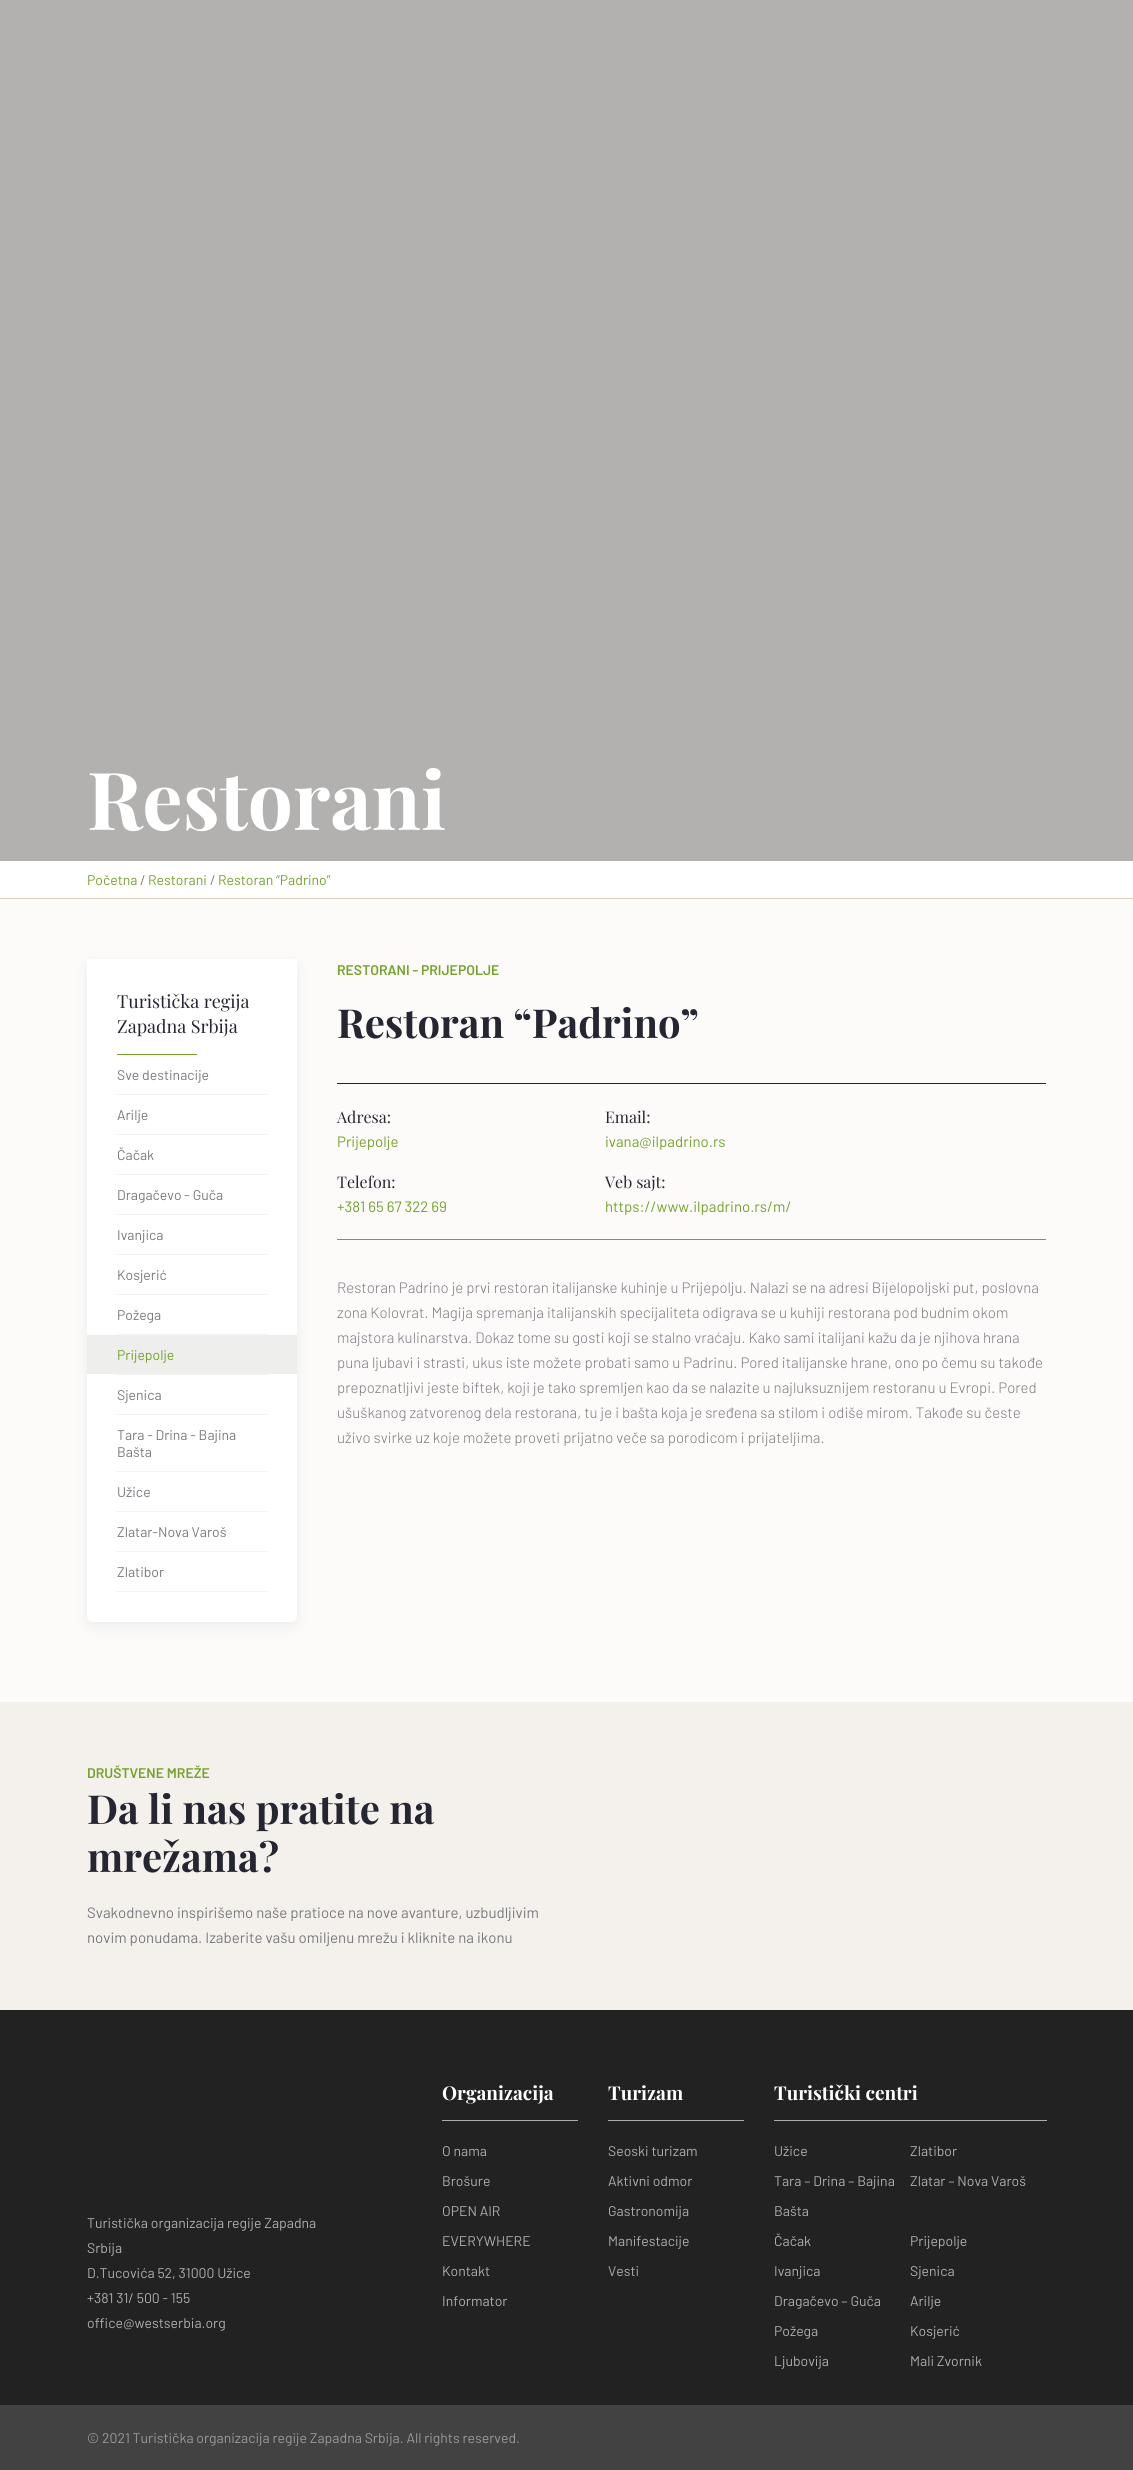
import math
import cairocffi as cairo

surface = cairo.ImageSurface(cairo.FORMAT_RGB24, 1133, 2470)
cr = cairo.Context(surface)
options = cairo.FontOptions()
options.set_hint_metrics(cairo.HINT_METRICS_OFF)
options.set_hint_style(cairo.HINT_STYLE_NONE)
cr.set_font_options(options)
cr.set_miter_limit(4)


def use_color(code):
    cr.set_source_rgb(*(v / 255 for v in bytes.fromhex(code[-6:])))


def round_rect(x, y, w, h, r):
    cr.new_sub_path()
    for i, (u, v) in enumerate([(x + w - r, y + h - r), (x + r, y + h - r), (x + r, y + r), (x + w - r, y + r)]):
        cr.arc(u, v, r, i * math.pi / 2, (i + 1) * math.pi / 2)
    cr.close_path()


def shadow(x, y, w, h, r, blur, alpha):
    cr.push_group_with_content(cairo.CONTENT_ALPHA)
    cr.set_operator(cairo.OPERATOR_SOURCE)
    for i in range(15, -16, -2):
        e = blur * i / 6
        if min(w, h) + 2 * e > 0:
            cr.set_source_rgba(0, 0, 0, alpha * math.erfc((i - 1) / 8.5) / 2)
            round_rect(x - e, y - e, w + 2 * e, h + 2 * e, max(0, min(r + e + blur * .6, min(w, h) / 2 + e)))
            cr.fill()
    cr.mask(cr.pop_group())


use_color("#fcfbfa")
cr.paint()
use_color("#b2b1b0")
cr.rectangle(0, 0, 1133, 861)
cr.fill()
cr.select_font_face("Playfair Display", cairo.FONT_SLANT_NORMAL, cairo.FONT_WEIGHT_BOLD)
cr.set_font_size(80)
use_color("#ffffff")
cr.move_to(87, 830)
cr.show_text("Restorani")
cr.rectangle(0, 861, 1133, 37)
cr.fill()
use_color("#dad0c3")
cr.rectangle(0, 898, 1133, 1)
cr.fill()
cr.select_font_face("Barlow")
cr.set_font_size(14)
use_color("#74a22c")
cr.move_to(87, 885)
cr.show_text("Početna")
use_color("#797980")
cr.move_to(140, 885)
cr.show_text("/")
use_color("#74a22c")
cr.move_to(148, 885)
cr.show_text("Restorani")
use_color("#797980")
cr.move_to(210, 885)
cr.show_text("/")
use_color("#74a22c")
cr.move_to(218, 885)
cr.show_text("Restoran “Padrino”")
use_color("#262633")
shadow(87, 964, 210, 663, 6, 8, 0.07)
use_color("#ffffff")
cr.new_path()
cr.move_to(87, 959)
cr.line_to(297, 959)
cr.line_to(297, 1616)
cr.curve_to(297, 1619.5, 294.5, 1622, 291, 1622)
cr.line_to(93, 1622)
cr.curve_to(89.5, 1622, 87, 1619.5, 87, 1616)
cr.close_path()
cr.fill()
cr.select_font_face("Playfair Display")
cr.set_font_size(18)
use_color("#262633")
cr.move_to(117, 1008)
cr.show_text("Turistička regija")
cr.move_to(117, 1033)
cr.show_text("Zapadna Srbija")
use_color("#74a22c")
cr.rectangle(117, 1054, 80, 1)
cr.fill()
use_color("#f2f2f2")
cr.rectangle(117, 1094, 150, 1)
cr.fill()
cr.select_font_face("Barlow")
cr.set_font_size(14)
use_color("#797980")
cr.move_to(117, 1080)
cr.show_text("Sve destinacije")
use_color("#f2f2f2")
cr.rectangle(117, 1134, 150, 1)
cr.fill()
use_color("#797980")
cr.move_to(117, 1120)
cr.show_text("Arilje")
use_color("#f2f2f2")
cr.rectangle(117, 1174, 150, 1)
cr.fill()
use_color("#797980")
cr.move_to(117, 1160)
cr.show_text("Čačak")
use_color("#f2f2f2")
cr.rectangle(117, 1214, 150, 1)
cr.fill()
use_color("#797980")
cr.move_to(117, 1200)
cr.show_text("Dragačevo - Guča")
use_color("#f2f2f2")
cr.rectangle(117, 1254, 150, 1)
cr.fill()
use_color("#797980")
cr.move_to(117, 1240)
cr.show_text("Ivanjica")
use_color("#f2f2f2")
cr.rectangle(117, 1294, 150, 1)
cr.fill()
use_color("#797980")
cr.move_to(117, 1280)
cr.show_text("Kosjerić")
use_color("#f2f2f2")
cr.rectangle(117, 1334, 150, 1)
cr.fill()
use_color("#797980")
cr.move_to(117, 1320)
cr.show_text("Požega")
use_color("#f2f2f2")
cr.rectangle(117, 1374, 150, 1)
cr.fill()
use_color("#eeeeed")
cr.rectangle(87, 1335, 210, 39)
cr.fill()
use_color("#74a22c")
cr.move_to(117, 1360)
cr.show_text("Prijepolje")
use_color("#f2f2f2")
cr.rectangle(117, 1414, 150, 1)
cr.fill()
use_color("#797980")
cr.move_to(117, 1400)
cr.show_text("Sjenica")
use_color("#f2f2f2")
cr.rectangle(117, 1471, 150, 1)
cr.fill()
use_color("#797980")
cr.move_to(117, 1440)
cr.show_text("Tara - Drina - Bajina")
cr.move_to(117, 1457)
cr.show_text("Bašta")
use_color("#f2f2f2")
cr.rectangle(117, 1511, 150, 1)
cr.fill()
use_color("#797980")
cr.move_to(117, 1497)
cr.show_text("Užice")
use_color("#f2f2f2")
cr.rectangle(117, 1551, 150, 1)
cr.fill()
use_color("#797980")
cr.move_to(117, 1537)
cr.show_text("Zlatar-Nova Varoš")
use_color("#f2f2f2")
cr.rectangle(117, 1591, 150, 1)
cr.fill()
use_color("#797980")
cr.move_to(117, 1577)
cr.show_text("Zlatibor")
cr.select_font_face("Barlow SemiBold")
use_color("#74a22c")
cr.move_to(337, 975)
cr.show_text("RESTORANI - PRIJEPOLJE")
cr.select_font_face("Playfair Display", cairo.FONT_SLANT_NORMAL, cairo.FONT_WEIGHT_BOLD)
cr.set_font_size(40)
use_color("#262633")
cr.move_to(337, 1038)
cr.show_text("Restoran “Padrino”")
cr.rectangle(337, 1083, 709, 1)
cr.fill()
use_color("#74a22c")
cr.rectangle(337, 1239, 709, 1)
cr.fill()
cr.select_font_face("Playfair Display")
cr.set_font_size(16)
use_color("#262633")
cr.move_to(337, 1123)
cr.show_text("Adresa:")
cr.select_font_face("Barlow")
cr.set_font_size(15)
use_color("#74a22c")
cr.move_to(337, 1147)
cr.show_text("Prijepolje")
cr.select_font_face("Playfair Display")
cr.set_font_size(16)
use_color("#262633")
cr.move_to(605, 1123)
cr.show_text("Email:")
cr.select_font_face("Barlow")
cr.set_font_size(15)
use_color("#74a22c")
cr.move_to(605, 1147)
cr.show_text("ivana@ilpadrino.rs")
cr.select_font_face("Playfair Display")
cr.set_font_size(16)
use_color("#262633")
cr.move_to(337, 1188)
cr.show_text("Telefon:")
cr.select_font_face("Barlow")
cr.set_font_size(15)
use_color("#74a22c")
cr.move_to(337, 1212)
cr.show_text("+381 65 67 322 69")
cr.select_font_face("Playfair Display")
cr.set_font_size(16)
use_color("#262633")
cr.move_to(605, 1188)
cr.show_text("Veb sajt:")
cr.select_font_face("Barlow")
cr.set_font_size(15)
use_color("#74a22c")
cr.move_to(605, 1212)
cr.show_text("https://www.ilpadrino.rs/m/")
cr.select_font_face("Barlow Light")
use_color("#797980")
cr.move_to(337, 1293)
cr.show_text("Restoran Padrino je prvi restoran italijanske kuhinje u Prijepolju. Nalazi se na adresi Bijelopoljski put, poslovna")
cr.move_to(337, 1318)
cr.show_text("zona Kolovrat. Magija spremanja italijanskih specijaliteta odigrava se u kuhiji restorana pod budnim okom")
cr.move_to(337, 1343)
cr.show_text("majstora kulinarstva. Dokaz tome su gosti koji se stalno vraćaju. Kako sami italijani kažu da je njihova hrana")
cr.move_to(337, 1368)
cr.show_text("puna ljubavi i strasti, ukus iste možete probati samo u Padrinu. Pored italijanske hrane, ono po čemu su takođe")
cr.move_to(337, 1393)
cr.show_text("prepoznatljivi jeste biftek, koji je tako spremljen kao da se nalazite u najluksuznijem restoranu u Evropi. Pored")
cr.move_to(337, 1418)
cr.show_text("ušuškanog zatvorenog dela restorana, tu je i bašta koja je sređena sa stilom i odiše mirom. Takođe su česte")
cr.move_to(337, 1443)
cr.show_text("uživo svirke uz koje možete proveti prijatno veče sa porodicom i prijateljima.")
use_color("#f4f0eb")
cr.rectangle(0, 1702, 1133, 308)
cr.fill()
cr.select_font_face("Barlow SemiBold")
cr.set_font_size(14)
use_color("#74a22c")
cr.move_to(87, 1778)
cr.show_text("DRUŠTVENE MREŽE")
cr.select_font_face("Playfair Display", cairo.FONT_SLANT_NORMAL, cairo.FONT_WEIGHT_BOLD)
cr.set_font_size(40)
use_color("#262633")
cr.move_to(87, 1824)
cr.show_text("Da li nas pratite na")
cr.move_to(87, 1872)
cr.show_text("mrežama?")
cr.select_font_face("Barlow")
cr.set_font_size(15)
use_color("#797980")
cr.move_to(87, 1918)
cr.show_text("Svakodnevno inspirišemo naše pratioce na nove avanture, uzbudljivim")
cr.move_to(87, 1943)
cr.show_text("novim ponudama. Izaberite vašu omiljenu mrežu i kliknite na ikonu")
use_color("#222222")
cr.rectangle(0, 2010, 1133, 395)
cr.fill()
cr.set_font_size(14)
use_color("#adadad")
cr.move_to(87, 2228)
cr.show_text("Turistička organizacija regije Zapadna")
cr.move_to(87, 2253)
cr.show_text("Srbija")
cr.move_to(87, 2278)
cr.show_text("D.Tucovića 52, 31000 Užice")
cr.move_to(87, 2303)
cr.show_text("+381 31/ 500 - 155")
cr.move_to(87, 2328)
cr.show_text("office@westserbia.org")
cr.rectangle(442, 2120, 136, 1)
cr.fill()
cr.select_font_face("Playfair Display", cairo.FONT_SLANT_NORMAL, cairo.FONT_WEIGHT_BOLD)
cr.set_font_size(19)
use_color("#ffffff")
cr.move_to(442, 2100)
cr.show_text("Organizacija")
cr.select_font_face("Barlow")
cr.set_font_size(14)
use_color("#adadad")
cr.move_to(442, 2156)
cr.show_text("O nama")
cr.move_to(442, 2186)
cr.show_text("Brošure")
cr.move_to(442, 2216)
cr.show_text("OPEN AIR")
cr.move_to(442, 2246)
cr.show_text("EVERYWHERE")
cr.move_to(442, 2276)
cr.show_text("Kontakt")
cr.move_to(442, 2306)
cr.show_text("Informator")
cr.rectangle(608, 2120, 136, 1)
cr.fill()
cr.select_font_face("Playfair Display", cairo.FONT_SLANT_NORMAL, cairo.FONT_WEIGHT_BOLD)
cr.set_font_size(19)
use_color("#ffffff")
cr.move_to(608, 2100)
cr.show_text("Turizam")
cr.select_font_face("Barlow")
cr.set_font_size(14)
use_color("#adadad")
cr.move_to(608, 2156)
cr.show_text("Seoski turizam")
cr.move_to(608, 2186)
cr.show_text("Aktivni odmor")
cr.move_to(608, 2216)
cr.show_text("Gastronomija")
cr.move_to(608, 2246)
cr.show_text("Manifestacije")
cr.move_to(608, 2276)
cr.show_text("Vesti")
cr.rectangle(774, 2120, 273, 1)
cr.fill()
cr.select_font_face("Playfair Display", cairo.FONT_SLANT_NORMAL, cairo.FONT_WEIGHT_BOLD)
cr.set_font_size(19)
use_color("#ffffff")
cr.move_to(774, 2100)
cr.show_text("Turistički centri")
cr.select_font_face("Barlow")
cr.set_font_size(14)
use_color("#adadad")
cr.move_to(774, 2156)
cr.show_text("Užice")
cr.move_to(910, 2156)
cr.show_text("Zlatibor")
cr.move_to(774, 2186)
cr.show_text("Tara – Drina – Bajina")
cr.move_to(774, 2216)
cr.show_text("Bašta")
cr.move_to(910, 2186)
cr.show_text("Zlatar – Nova Varoš")
cr.move_to(774, 2246)
cr.show_text("Čačak")
cr.move_to(910, 2246)
cr.show_text("Prijepolje")
cr.move_to(774, 2276)
cr.show_text("Ivanjica")
cr.move_to(910, 2276)
cr.show_text("Sjenica")
cr.move_to(774, 2306)
cr.show_text("Dragačevo – Guča")
cr.move_to(910, 2306)
cr.show_text("Arilje")
cr.move_to(774, 2336)
cr.show_text("Požega")
cr.move_to(910, 2336)
cr.show_text("Kosjerić")
cr.move_to(774, 2366)
cr.show_text("Ljubovija")
cr.move_to(910, 2366)
cr.show_text("Mali Zvornik")
use_color("#424242")
cr.rectangle(0, 2405, 1133, 65)
cr.fill()
use_color("#999999")
cr.move_to(87, 2443)
cr.show_text("© 2021 Turistička organizacija regije Zapadna Srbija. All rights reserved.")
surface.write_to_png("result.png")
